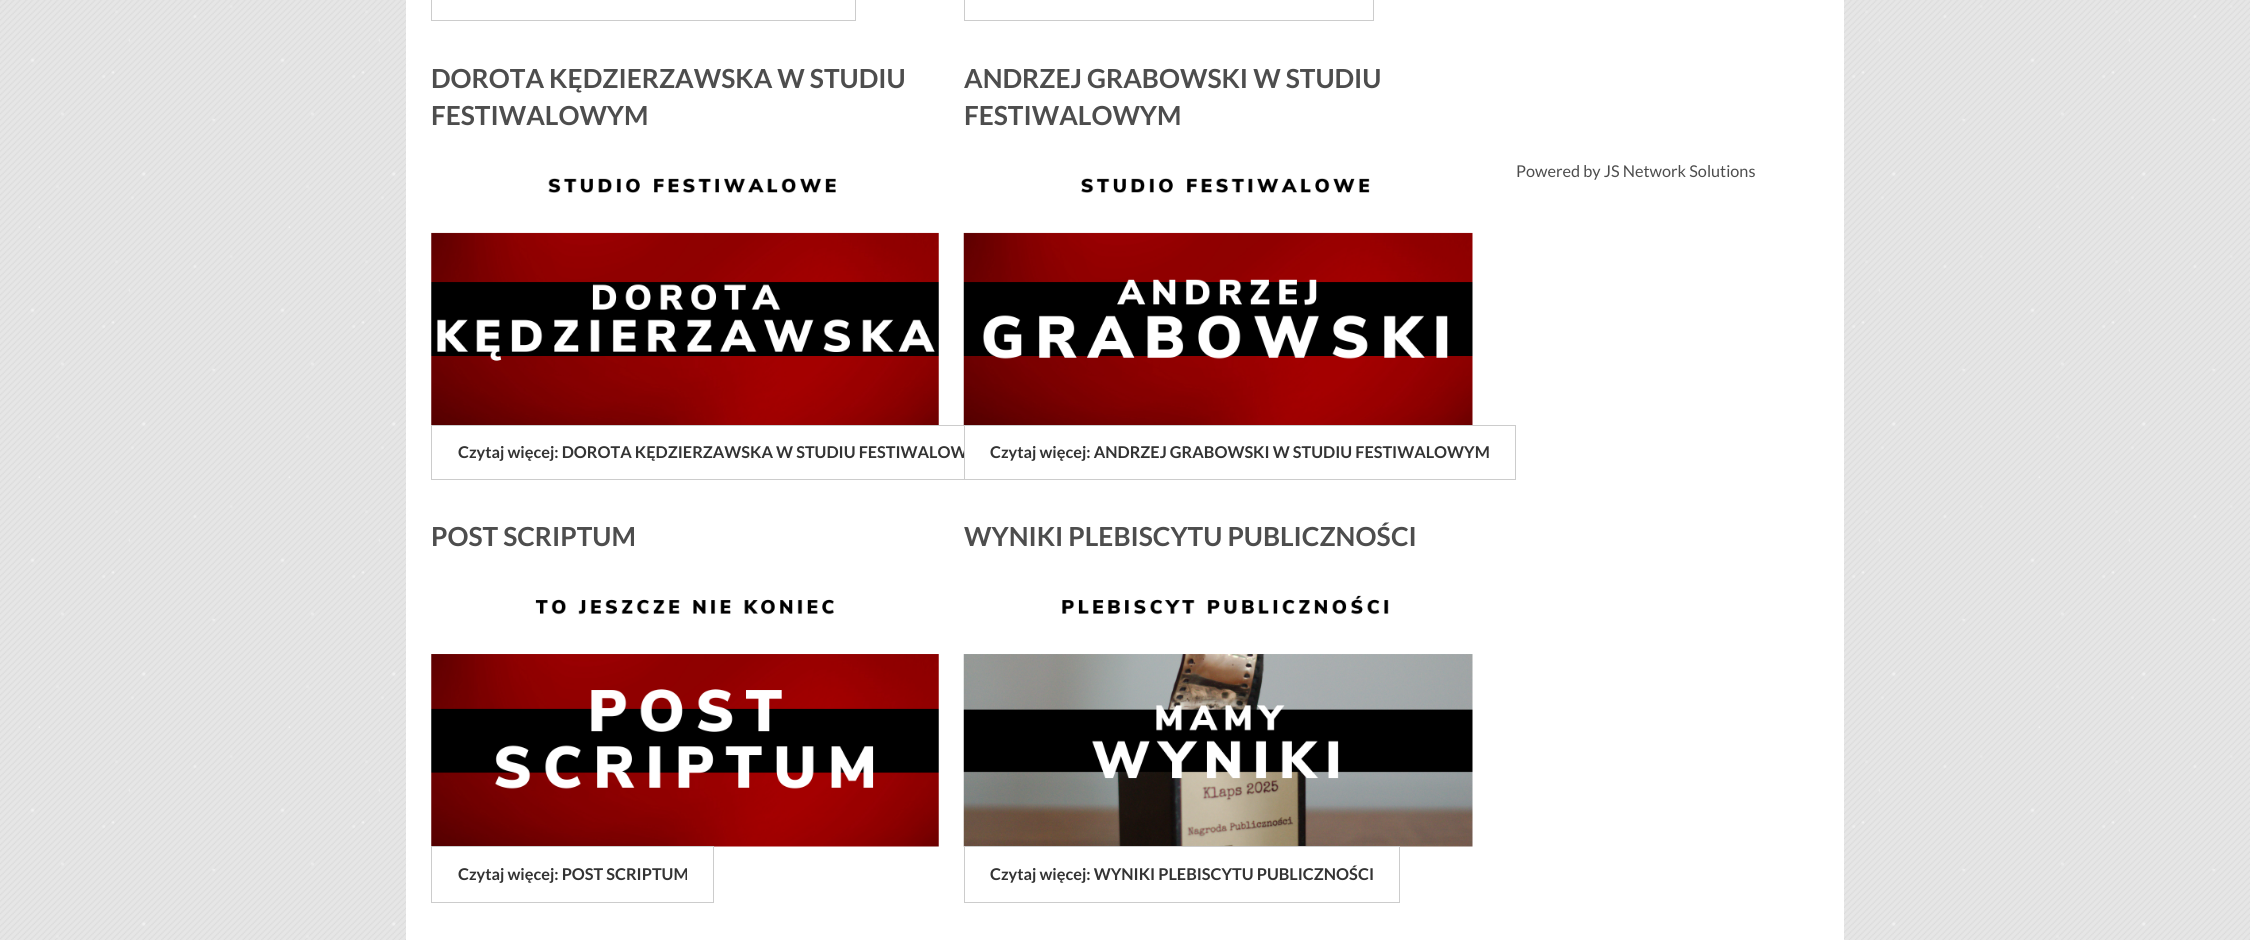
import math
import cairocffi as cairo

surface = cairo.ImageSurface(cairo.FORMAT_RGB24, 2250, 940)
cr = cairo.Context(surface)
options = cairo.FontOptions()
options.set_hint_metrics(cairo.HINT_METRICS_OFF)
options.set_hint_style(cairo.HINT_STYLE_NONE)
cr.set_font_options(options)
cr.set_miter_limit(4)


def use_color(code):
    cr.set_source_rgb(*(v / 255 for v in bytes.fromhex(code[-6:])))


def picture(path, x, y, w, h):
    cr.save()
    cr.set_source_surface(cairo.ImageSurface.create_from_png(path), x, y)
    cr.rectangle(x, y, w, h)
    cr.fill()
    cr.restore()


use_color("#ffffff")
cr.paint()
picture("img1.png", 0, 0, 2250, 940)
use_color("#ffffff")
cr.rectangle(406, 0, 1438, 940)
cr.fill()
cr.rectangle(431.5, -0.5, 424, 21)
use_color("#cccccc")
cr.set_line_width(1)
cr.stroke()
cr.rectangle(964.5, -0.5, 409, 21)
cr.stroke()
cr.select_font_face("Lato", cairo.FONT_SLANT_NORMAL, cairo.FONT_WEIGHT_BOLD)
cr.set_font_size(26.25)
use_color("#4d4d4d")
cr.move_to(431, 88)
cr.show_text("DOROTA KĘDZIERZAWSKA W STUDIU")
cr.move_to(431, 125)
cr.show_text("FESTIWALOWYM")
picture("img2.png", 431, 178, 508, 247)
cr.rectangle(431.5, 425.5, 587, 54)
use_color("#cccccc")
cr.stroke()
cr.set_font_size(16.25)
use_color("#333333")
cr.move_to(458, 458)
cr.show_text("Czytaj więcej: DOROTA KĘDZIERZAWSKA W STUDIU FESTIWALOW")
cr.set_font_size(26.25)
use_color("#4d4d4d")
cr.move_to(964, 88)
cr.show_text("ANDRZEJ GRABOWSKI W STUDIU")
cr.move_to(964, 125)
cr.show_text("FESTIWALOWYM")
picture("img3.png", 963, 178, 510, 248)
use_color("#ffffff")
cr.rectangle(965, 426, 54, 53)
cr.fill()
cr.rectangle(964.5, 425.5, 551, 54)
use_color("#cccccc")
cr.stroke()
cr.set_font_size(16.25)
use_color("#333333")
cr.move_to(990, 458)
cr.show_text("Czytaj więcej: ANDRZEJ GRABOWSKI W STUDIU FESTIWALOWYM")
cr.set_font_size(26.25)
use_color("#4d4d4d")
cr.move_to(431, 546)
cr.show_text("POST SCRIPTUM")
picture("img4.png", 431, 599, 508, 248)
cr.rectangle(431.5, 846.5, 282, 56)
use_color("#cccccc")
cr.stroke()
cr.set_font_size(16.25)
use_color("#333333")
cr.move_to(458, 880)
cr.show_text("Czytaj więcej: POST SCRIPTUM")
cr.set_font_size(26.25)
use_color("#4d4d4d")
cr.move_to(964, 546)
cr.show_text("WYNIKI PLEBISCYTU PUBLICZNOŚCI")
picture("img5.png", 963, 595, 510, 252)
cr.rectangle(964.5, 846.5, 435, 56)
use_color("#cccccc")
cr.stroke()
cr.set_font_size(16.25)
use_color("#333333")
cr.move_to(990, 880)
cr.show_text("Czytaj więcej: WYNIKI PLEBISCYTU PUBLICZNOŚCI")
cr.select_font_face("Lato")
use_color("#4d4d4d")
cr.move_to(1516, 177)
cr.show_text("Powered by JS Network Solutions")
surface.write_to_png("result.png")
